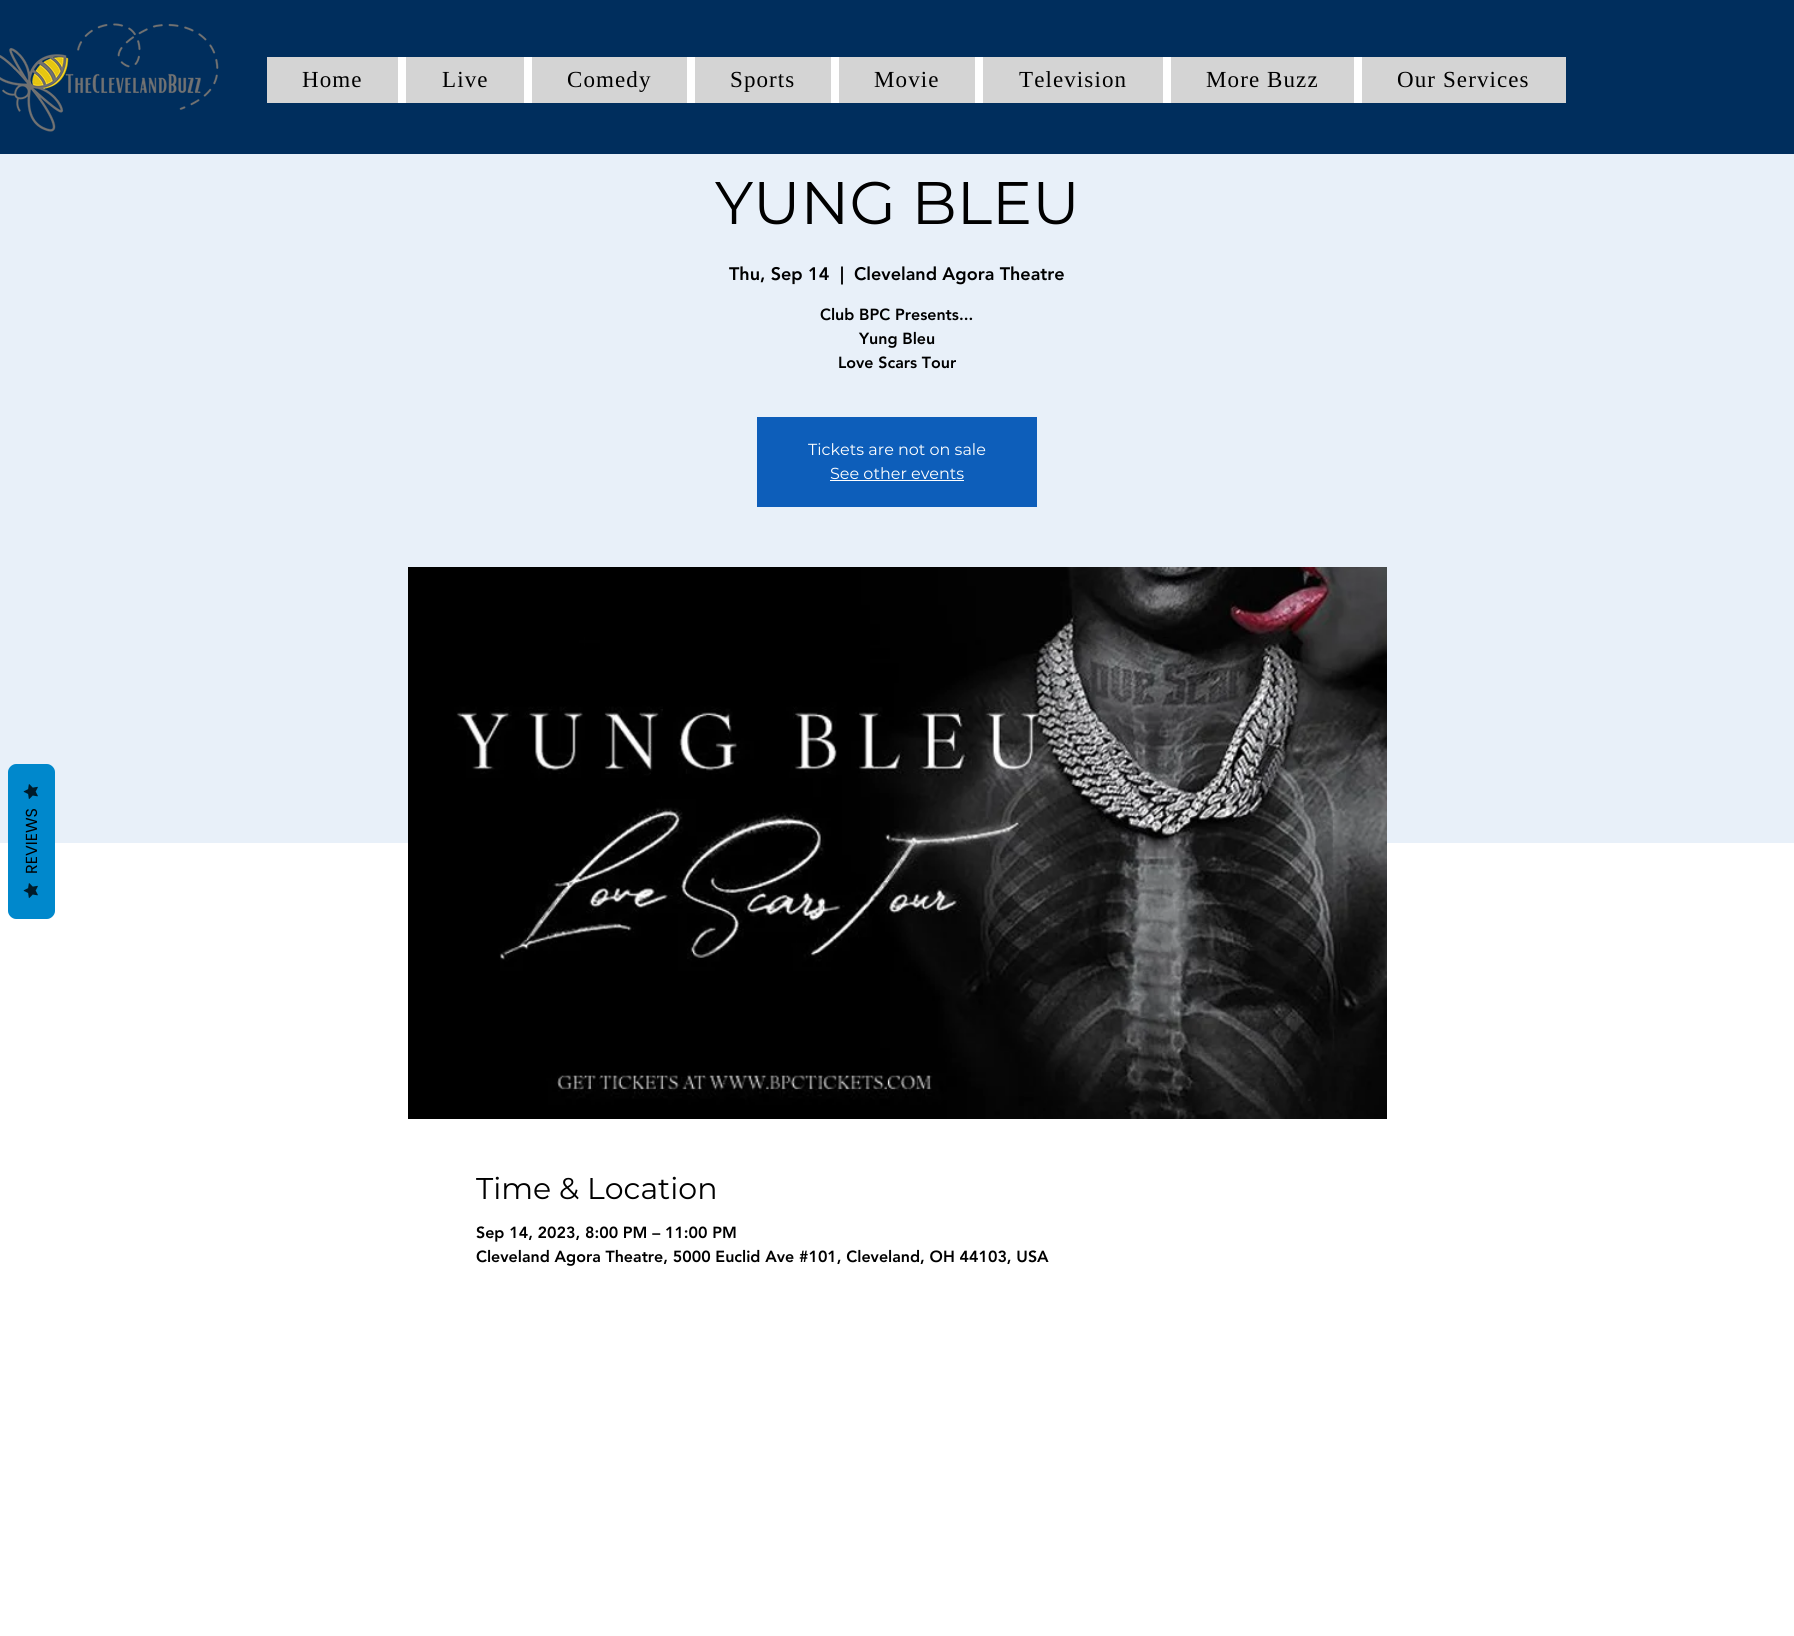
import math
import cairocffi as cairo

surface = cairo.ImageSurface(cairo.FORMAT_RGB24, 1794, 1636)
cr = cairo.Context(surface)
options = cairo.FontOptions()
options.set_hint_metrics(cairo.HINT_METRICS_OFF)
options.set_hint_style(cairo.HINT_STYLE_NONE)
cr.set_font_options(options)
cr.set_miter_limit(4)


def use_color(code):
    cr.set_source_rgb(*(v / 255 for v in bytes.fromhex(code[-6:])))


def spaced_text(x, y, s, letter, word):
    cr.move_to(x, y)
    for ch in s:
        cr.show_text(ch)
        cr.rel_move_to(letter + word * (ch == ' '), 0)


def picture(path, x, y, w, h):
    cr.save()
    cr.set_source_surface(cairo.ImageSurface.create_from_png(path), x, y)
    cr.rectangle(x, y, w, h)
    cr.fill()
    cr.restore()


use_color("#ffffff")
cr.paint()
use_color("#e8f0f9")
cr.rectangle(0, 154, 1794, 689)
cr.fill()
use_color("#0088cc")
cr.new_path()
cr.move_to(8, 911)
cr.line_to(8, 772)
cr.curve_to(8, 768, 12, 764, 16, 764)
cr.line_to(47, 764)
cr.curve_to(51, 764, 55, 768, 55, 772)
cr.line_to(55, 911)
cr.curve_to(55, 915, 51, 919, 47, 919)
cr.line_to(16, 919)
cr.curve_to(12, 919, 8, 915, 8, 911)
cr.close_path()
cr.fill()
picture("img1.png", 23, 784, 15, 15)
cr.select_font_face("Poppins")
cr.set_font_size(16)
use_color("#000000")
cr.save()
cr.translate(37, 874)
cr.rotate(-90 * math.pi / 180)
cr.move_to(0, 0)
cr.show_text("REVIEWS")
cr.restore()
picture("img1.png", 23, 883, 15, 15)
use_color("#002e5d")
cr.rectangle(0, 0, 1794, 154)
cr.fill()
picture("img2.png", 0, 23, 219, 109)
use_color("#ffffff")
cr.rectangle(398, 57, 964, 46)
cr.fill()
use_color("#d4d4d4")
cr.rectangle(267, 57, 131, 46)
cr.fill()
cr.select_font_face("Liberation Serif")
cr.set_font_size(23)
use_color("#000000")
spaced_text(302, 87, "Home", 1.1, 0)
use_color("#d4d4d4")
cr.rectangle(406, 57, 118, 46)
cr.fill()
use_color("#000000")
spaced_text(442, 87, "Live", 1.1, 0)
use_color("#d4d4d4")
cr.rectangle(532, 57, 155, 46)
cr.fill()
use_color("#000000")
spaced_text(567, 87, "Comedy", 1.1, 0)
use_color("#d4d4d4")
cr.rectangle(695, 57, 136, 46)
cr.fill()
use_color("#000000")
spaced_text(730, 87, "Sports", 1.1, 0)
use_color("#d4d4d4")
cr.rectangle(839, 57, 136, 46)
cr.fill()
use_color("#000000")
spaced_text(874, 87, "Movie", 1.1, 0)
use_color("#d4d4d4")
cr.rectangle(983, 57, 180, 46)
cr.fill()
use_color("#000000")
spaced_text(1019, 87, "Television", 1.1, 0)
use_color("#d4d4d4")
cr.rectangle(1171, 57, 183, 46)
cr.fill()
use_color("#000000")
spaced_text(1206, 87, "More Buzz", 1.1, 0)
use_color("#d4d4d4")
cr.rectangle(1362, 57, 204, 46)
cr.fill()
use_color("#000000")
spaced_text(1397, 87, "Our Services", 1.1, 0)
cr.select_font_face("Montserrat")
cr.set_font_size(60)
cr.move_to(715, 224)
cr.show_text("YUNG BLEU")
cr.select_font_face("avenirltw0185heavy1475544 Black")
cr.set_font_size(18)
cr.move_to(729, 280)
cr.show_text("Thu, Sep 14")
cr.move_to(840, 280)
cr.show_text("|")
cr.move_to(854, 280)
cr.show_text("Cleveland Agora Theatre")
cr.set_font_size(16)
cr.move_to(820, 320)
cr.show_text("Club BPC Presents...")
cr.move_to(859, 344)
cr.show_text("Yung Bleu")
cr.move_to(838, 368)
cr.show_text("Love Scars Tour")
use_color("#0d5eba")
cr.rectangle(757, 417, 280, 90)
cr.fill()
cr.select_font_face("Montserrat")
use_color("#ffffff")
cr.move_to(808, 455)
cr.show_text("Tickets are not on sale")
cr.move_to(830, 479)
cr.show_text("See other events")
cr.rectangle(830, 480, 134, 1)
cr.fill()
picture("img3.png", 408, 567, 979, 552)
cr.set_font_size(30)
use_color("#000000")
cr.move_to(476, 1199)
cr.show_text("Time & Location")
cr.select_font_face("avenirltw0185heavy1475544 Black")
cr.set_font_size(16)
cr.move_to(476, 1238)
cr.show_text("Sep 14, 2023, 8:00 PM – 11:00 PM")
cr.move_to(476, 1262)
cr.show_text("Cleveland Agora Theatre, 5000 Euclid Ave #101, Cleveland, OH 44103, USA")
surface.write_to_png("result.png")
